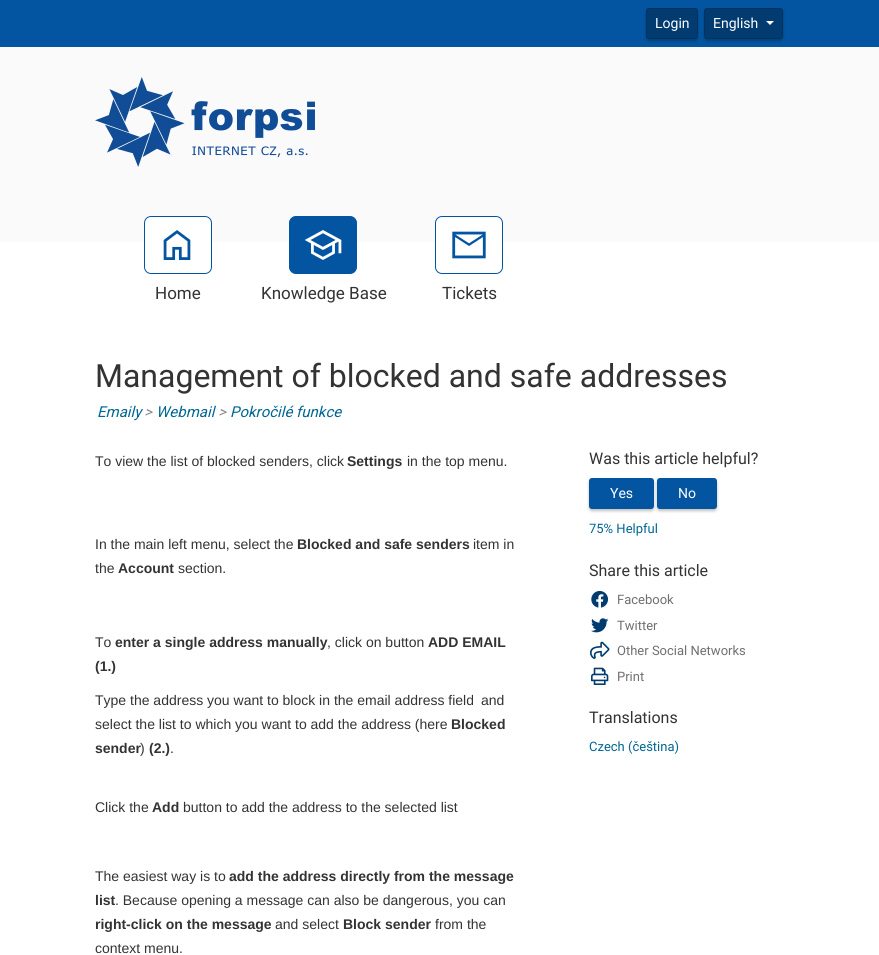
import math
import cairocffi as cairo

surface = cairo.ImageSurface(cairo.FORMAT_RGB24, 879, 955)
cr = cairo.Context(surface)
options = cairo.FontOptions()
options.set_hint_metrics(cairo.HINT_METRICS_OFF)
options.set_hint_style(cairo.HINT_STYLE_NONE)
cr.set_font_options(options)
cr.set_miter_limit(4)


def use_color(code):
    cr.set_source_rgb(*(v / 255 for v in bytes.fromhex(code[-6:])))


def round_rect(x, y, w, h, r):
    cr.new_sub_path()
    for i, (u, v) in enumerate([(x + w - r, y + h - r), (x + r, y + h - r), (x + r, y + r), (x + w - r, y + r)]):
        cr.arc(u, v, r, i * math.pi / 2, (i + 1) * math.pi / 2)
    cr.close_path()


def shadow(x, y, w, h, r, blur, alpha):
    cr.push_group_with_content(cairo.CONTENT_ALPHA)
    cr.set_operator(cairo.OPERATOR_SOURCE)
    for i in range(15, -16, -2):
        e = blur * i / 6
        if min(w, h) + 2 * e > 0:
            cr.set_source_rgba(0, 0, 0, alpha * math.erfc((i - 1) / 8.5) / 2)
            round_rect(x - e, y - e, w + 2 * e, h + 2 * e, max(0, min(r + e + blur * .6, min(w, h) / 2 + e)))
            cr.fill()
    cr.mask(cr.pop_group())


def picture(path, x, y, w, h):
    cr.save()
    cr.set_source_surface(cairo.ImageSurface.create_from_png(path), x, y)
    cr.rectangle(x, y, w, h)
    cr.fill()
    cr.restore()


use_color("#ffffff")
cr.paint()
use_color("#0355a1")
cr.rectangle(0, 0, 879, 47)
cr.fill()
use_color("#000000")
shadow(646, 10, 52, 31, 3, 1.5, 0.25)
use_color("#023b70")
round_rect(646.5, 8.5, 51, 30, 2.5)
cr.fill_preserve()
use_color("#013360")
cr.set_line_width(1)
cr.stroke()
cr.select_font_face("Roboto")
cr.set_font_size(14)
use_color("#ffffff")
cr.move_to(655, 28)
cr.show_text("Login")
use_color("#000000")
shadow(704, 10, 79, 31, 3, 1.5, 0.25)
use_color("#023b70")
round_rect(704.5, 8.5, 78, 30, 2.5)
cr.fill_preserve()
use_color("#013360")
cr.stroke()
use_color("#ffffff")
cr.move_to(713, 28)
cr.show_text("English")
cr.new_path()
cr.move_to(766, 21)
cr.line_to(774, 21)
cr.line_to(770, 25)
cr.close_path()
cr.fill()
use_color("#fafafa")
cr.rectangle(0, 47, 879, 195)
cr.fill()
picture("img1.png", 95, 77, 220, 90)
use_color("#ffffff")
round_rect(144.5, 216.5, 67, 57, 6.5)
cr.fill_preserve()
use_color("#0355a1")
cr.stroke()
picture("img2.png", 163, 230, 28, 30)
cr.set_font_size(17)
use_color("#333333")
cr.move_to(155, 299)
cr.show_text("Home")
use_color("#0355a1")
round_rect(289.5, 216.5, 67, 57, 6.5)
cr.fill_preserve()
cr.stroke()
picture("img3.png", 304, 230, 38, 30)
use_color("#333333")
cr.move_to(261, 299)
cr.show_text("Knowledge Base")
use_color("#ffffff")
round_rect(435.5, 216.5, 67, 57, 6.5)
cr.fill_preserve()
use_color("#0355a1")
cr.stroke()
picture("img4.png", 452, 231, 34, 28)
use_color("#333333")
cr.move_to(442, 299)
cr.show_text("Tickets")
cr.set_font_size(32)
cr.move_to(95, 387)
cr.show_text("Management of blocked and safe addresses")
cr.select_font_face("Roboto", cairo.FONT_SLANT_ITALIC)
cr.set_font_size(15)
use_color("#006693")
cr.move_to(97, 417)
cr.show_text("Emaily")
use_color("#888888")
cr.move_to(144, 417)
cr.show_text(">")
use_color("#006693")
cr.move_to(156, 417)
cr.show_text("Webmail")
use_color("#888888")
cr.move_to(218, 417)
cr.show_text(">")
use_color("#006693")
cr.move_to(230, 417)
cr.show_text("Pokročilé funkce")
cr.select_font_face("Liberation Sans")
cr.set_font_size(14)
use_color("#333333")
cr.move_to(95, 466)
cr.show_text("To view the list of blocked senders, click")
cr.select_font_face("Liberation Sans", cairo.FONT_SLANT_NORMAL, cairo.FONT_WEIGHT_BOLD)
cr.move_to(347, 466)
cr.show_text("Settings")
cr.select_font_face("Liberation Sans")
cr.move_to(407, 466)
cr.show_text("in the top menu.")
cr.move_to(95, 549)
cr.show_text("In the main left menu, select the")
cr.select_font_face("Liberation Sans", cairo.FONT_SLANT_NORMAL, cairo.FONT_WEIGHT_BOLD)
cr.move_to(297, 549)
cr.show_text("Blocked and safe senders")
cr.select_font_face("Liberation Sans")
cr.move_to(473, 549)
cr.show_text("item in")
cr.move_to(95, 573)
cr.show_text("the")
cr.select_font_face("Liberation Sans", cairo.FONT_SLANT_NORMAL, cairo.FONT_WEIGHT_BOLD)
cr.move_to(118, 573)
cr.show_text("Account")
cr.select_font_face("Liberation Sans")
cr.move_to(178, 573)
cr.show_text("section.")
cr.move_to(95, 647)
cr.show_text("To")
cr.select_font_face("Liberation Sans", cairo.FONT_SLANT_NORMAL, cairo.FONT_WEIGHT_BOLD)
cr.move_to(115, 647)
cr.show_text("enter a single address manually")
cr.select_font_face("Liberation Sans")
cr.move_to(327, 647)
cr.show_text(", click on button")
cr.select_font_face("Liberation Sans", cairo.FONT_SLANT_NORMAL, cairo.FONT_WEIGHT_BOLD)
cr.move_to(428, 647)
cr.show_text("ADD EMAIL")
cr.move_to(95, 671)
cr.show_text("(1.)")
cr.select_font_face("Liberation Sans")
cr.move_to(95, 705)
cr.show_text("Type the address you want to block in the email address field")
cr.move_to(481, 705)
cr.show_text("and")
cr.move_to(95, 729)
cr.show_text("select the list to which you want to add the address (here")
cr.select_font_face("Liberation Sans", cairo.FONT_SLANT_NORMAL, cairo.FONT_WEIGHT_BOLD)
cr.move_to(451, 729)
cr.show_text("Blocked")
cr.move_to(95, 753)
cr.show_text("sender")
cr.select_font_face("Liberation Sans")
cr.move_to(140, 753)
cr.show_text(")")
cr.select_font_face("Liberation Sans", cairo.FONT_SLANT_NORMAL, cairo.FONT_WEIGHT_BOLD)
cr.move_to(149, 753)
cr.show_text("(2.)")
cr.select_font_face("Liberation Sans")
cr.move_to(170, 753)
cr.show_text(".")
cr.move_to(95, 812)
cr.show_text("Click the")
cr.select_font_face("Liberation Sans", cairo.FONT_SLANT_NORMAL, cairo.FONT_WEIGHT_BOLD)
cr.move_to(152, 812)
cr.show_text("Add")
cr.select_font_face("Liberation Sans")
cr.move_to(183, 812)
cr.show_text("button to add the address to the selected list")
cr.move_to(95, 881)
cr.show_text("The easiest way is to")
cr.select_font_face("Liberation Sans", cairo.FONT_SLANT_NORMAL, cairo.FONT_WEIGHT_BOLD)
cr.move_to(229, 881)
cr.show_text("add the address directly from the message")
cr.move_to(95, 905)
cr.show_text("list")
cr.select_font_face("Liberation Sans")
cr.move_to(115, 905)
cr.show_text(". Because opening a message can also be dangerous, you can")
cr.select_font_face("Liberation Sans", cairo.FONT_SLANT_NORMAL, cairo.FONT_WEIGHT_BOLD)
cr.move_to(95, 929)
cr.show_text("right-click on the message")
cr.select_font_face("Liberation Sans")
cr.move_to(275, 929)
cr.show_text("and select")
cr.select_font_face("Liberation Sans", cairo.FONT_SLANT_NORMAL, cairo.FONT_WEIGHT_BOLD)
cr.move_to(343, 929)
cr.show_text("Block sender")
cr.select_font_face("Liberation Sans")
cr.move_to(435, 929)
cr.show_text("from the")
cr.move_to(95, 953)
cr.show_text("context menu.")
cr.select_font_face("Roboto")
cr.set_font_size(16)
cr.move_to(589, 464)
cr.show_text("Was this article helpful?")
use_color("#000000")
shadow(589, 480, 65, 31, 3, 1.5, 0.25)
use_color("#0355a1")
round_rect(589.5, 478.5, 64, 30, 2.5)
cr.fill_preserve()
cr.stroke()
cr.set_font_size(14)
use_color("#ffffff")
cr.move_to(610, 498)
cr.show_text("Yes")
use_color("#000000")
shadow(657, 480, 60, 31, 3, 1.5, 0.25)
use_color("#0355a1")
round_rect(657.5, 478.5, 59, 30, 2.5)
cr.fill_preserve()
cr.stroke()
use_color("#ffffff")
cr.move_to(678, 498)
cr.show_text("No")
cr.set_font_size(13)
use_color("#006693")
cr.move_to(589, 533)
cr.show_text("75% Helpful")
cr.set_font_size(16)
use_color("#333333")
cr.move_to(589, 576)
cr.show_text("Share this article")
picture("img5.png", 591, 590, 18, 18)
cr.set_font_size(13)
use_color("#707070")
cr.move_to(617, 604)
cr.show_text("Facebook")
picture("img6.png", 591, 618, 18, 15)
cr.move_to(617, 630)
cr.show_text("Twitter")
picture("img7.png", 590, 641, 20, 18)
cr.move_to(617, 655)
cr.show_text("Other Social Networks")
picture("img8.png", 591, 667, 18, 18)
cr.move_to(617, 681)
cr.show_text("Print")
cr.set_font_size(16)
use_color("#333333")
cr.move_to(589, 723)
cr.show_text("Translations")
cr.set_font_size(13)
use_color("#006693")
cr.move_to(589, 751)
cr.show_text("Czech (čeština)")
surface.write_to_png("result.png")
